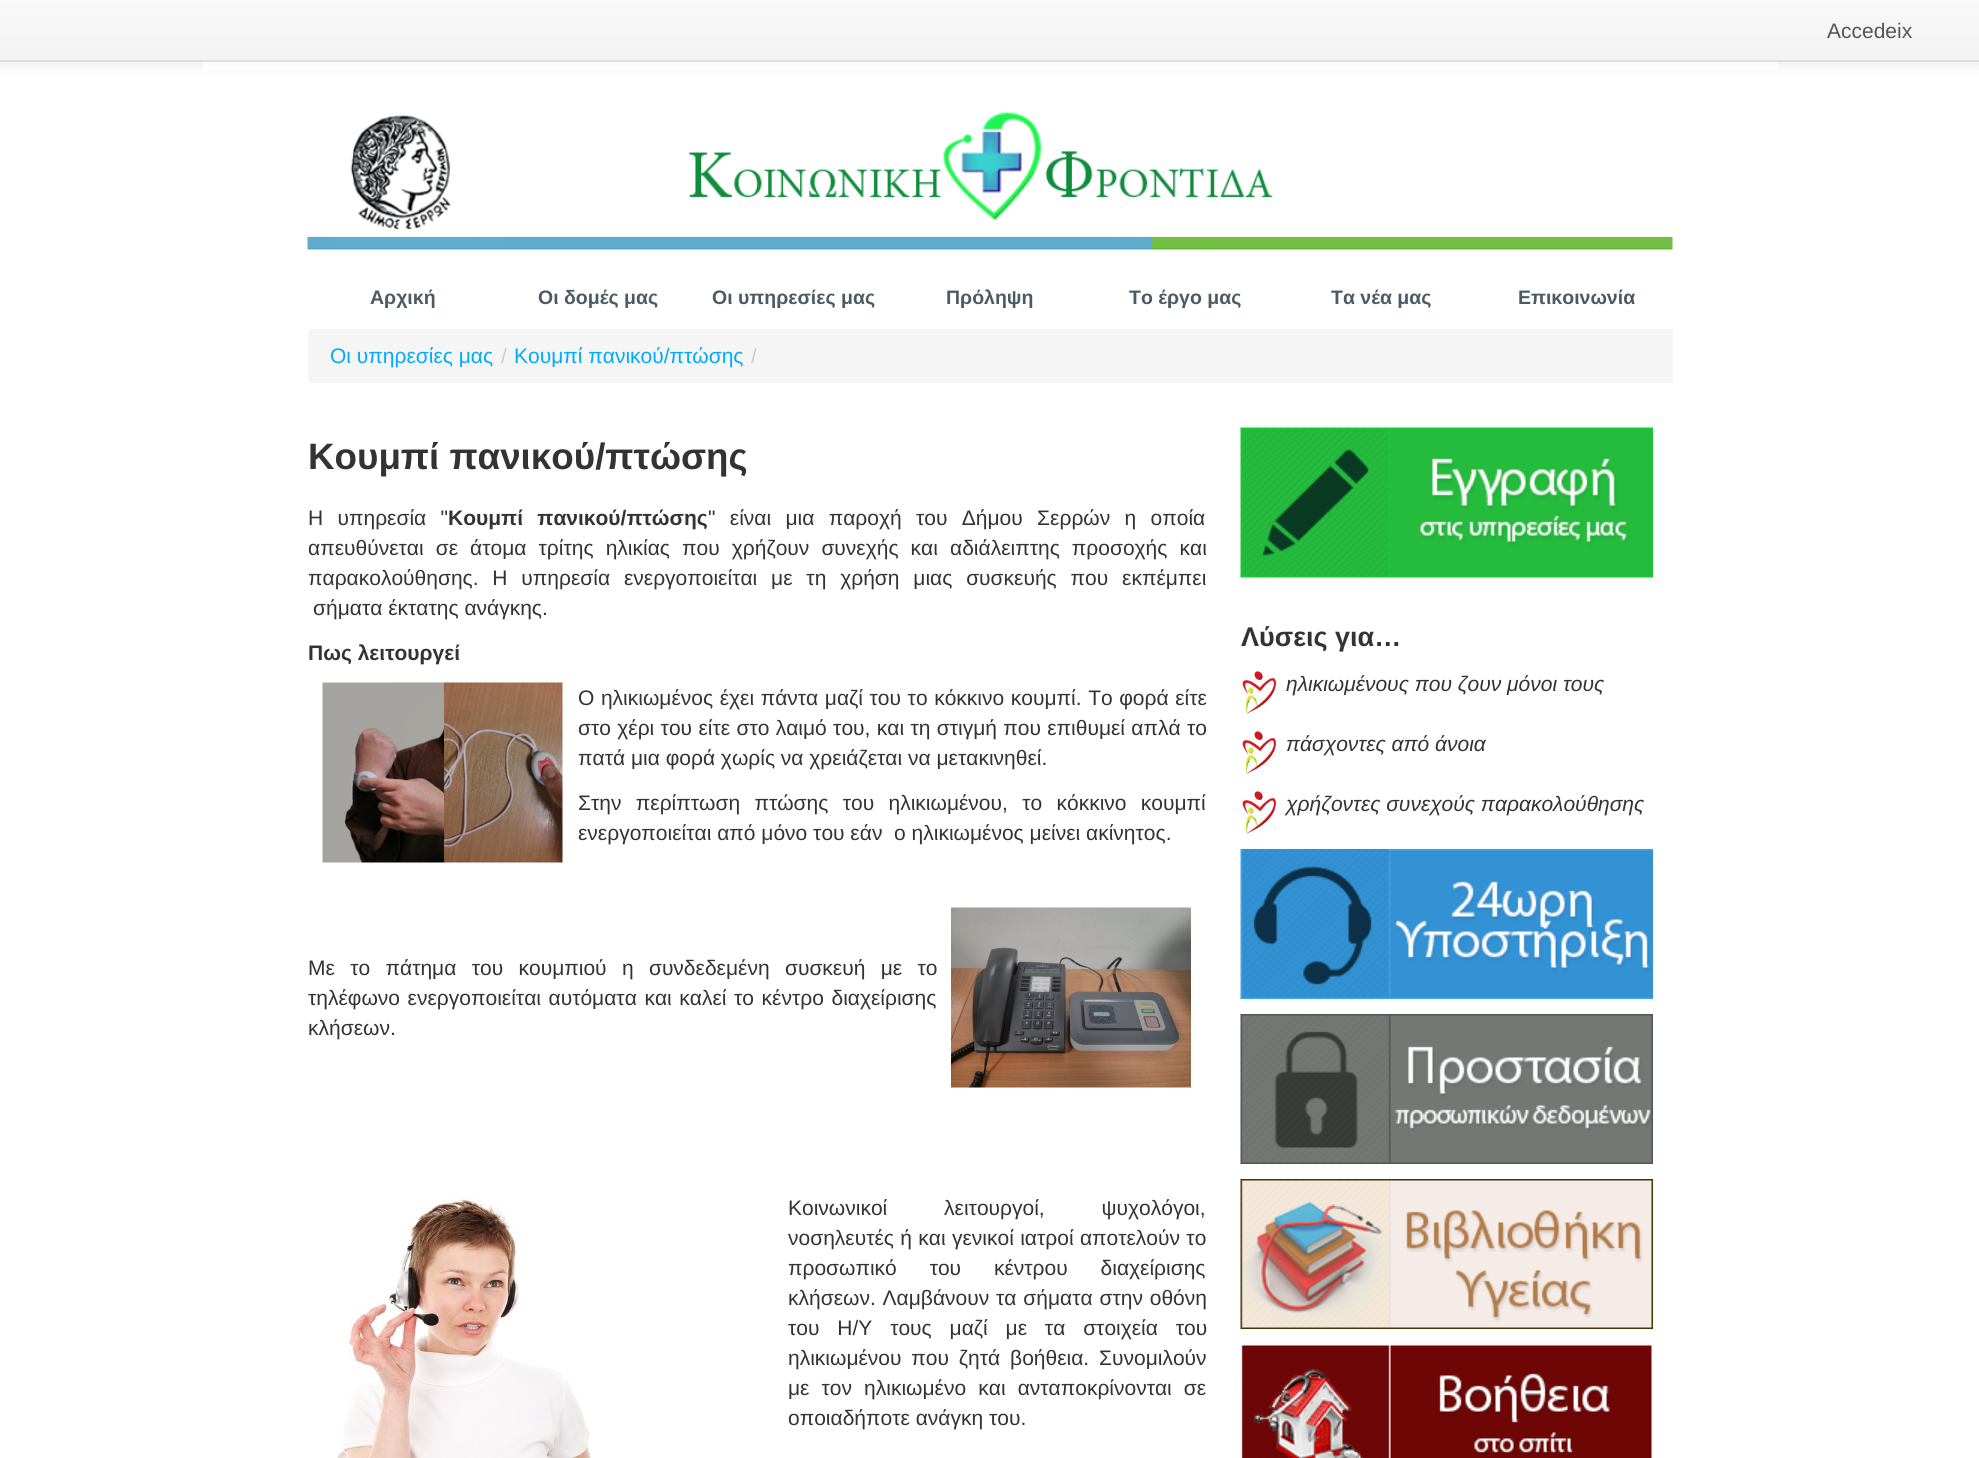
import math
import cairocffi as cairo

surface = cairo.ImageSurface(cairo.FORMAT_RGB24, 1979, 1458)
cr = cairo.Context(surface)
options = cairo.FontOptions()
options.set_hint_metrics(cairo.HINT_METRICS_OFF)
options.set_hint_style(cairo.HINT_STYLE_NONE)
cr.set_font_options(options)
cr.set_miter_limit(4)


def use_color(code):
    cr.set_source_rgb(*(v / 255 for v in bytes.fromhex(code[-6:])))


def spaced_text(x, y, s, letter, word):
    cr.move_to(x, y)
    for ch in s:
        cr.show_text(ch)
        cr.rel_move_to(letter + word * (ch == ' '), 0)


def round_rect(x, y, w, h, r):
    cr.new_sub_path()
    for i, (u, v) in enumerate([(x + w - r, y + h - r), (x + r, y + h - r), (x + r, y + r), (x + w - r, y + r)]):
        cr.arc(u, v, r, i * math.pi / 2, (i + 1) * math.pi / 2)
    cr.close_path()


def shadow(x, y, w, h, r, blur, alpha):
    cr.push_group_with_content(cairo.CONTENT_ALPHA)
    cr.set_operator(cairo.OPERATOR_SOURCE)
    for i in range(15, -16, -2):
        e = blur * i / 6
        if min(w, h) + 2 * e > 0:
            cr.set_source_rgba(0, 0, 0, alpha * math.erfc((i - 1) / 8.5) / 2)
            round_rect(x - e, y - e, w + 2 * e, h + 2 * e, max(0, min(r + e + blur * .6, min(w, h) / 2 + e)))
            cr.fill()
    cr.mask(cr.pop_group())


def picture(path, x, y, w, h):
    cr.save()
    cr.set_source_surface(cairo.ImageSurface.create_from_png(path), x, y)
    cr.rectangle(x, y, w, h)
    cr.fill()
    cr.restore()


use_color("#ffffff")
cr.paint()
use_color("#000000")
shadow(0, 2, 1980, 61, 0, 7.5, 0.1)
gradient = cairo.LinearGradient(990, 0, 990, 60)
gradient.add_color_stop_rgba(0, 0.976, 0.976, 0.976, 1)
gradient.add_color_stop_rgba(1, 0.953, 0.953, 0.953, 1)
cr.set_source(gradient)
cr.rectangle(0, 0, 1979, 60)
cr.fill()
use_color("#dddddd")
cr.rectangle(0, 60, 1979, 2)
cr.fill()
cr.select_font_face("Liberation Sans")
cr.set_font_size(21)
use_color("#555555")
cr.move_to(1827, 38)
cr.show_text("Accedeix")
cr.set_source_rgba(1, 1, 1, 0.7)
cr.rectangle(203, 62, 1575, 9)
cr.fill()
picture("img1.png", 307, 112, 1366, 138)
cr.select_font_face("Liberation Sans", cairo.FONT_SLANT_NORMAL, cairo.FONT_WEIGHT_BOLD)
cr.set_font_size(19.5)
use_color("#4b5b65")
cr.move_to(370, 304)
cr.show_text("Αρχική")
cr.move_to(538, 304)
cr.show_text("Οι δομές μας")
cr.move_to(712, 304)
cr.show_text("Οι υπηρεσίες μας")
cr.move_to(946, 304)
cr.show_text("Πρόληψη")
cr.move_to(1129, 304)
cr.show_text("Το έργο μας")
cr.move_to(1331, 304)
cr.show_text("Τα νέα μας")
cr.move_to(1518, 304)
cr.show_text("Επικοινωνία")
use_color("#f5f5f5")
round_rect(308, 329, 1365, 54, 3)
cr.fill()
cr.select_font_face("Liberation Sans")
cr.set_font_size(21)
use_color("#00aaff")
cr.move_to(330, 363)
cr.show_text("Οι υπηρεσίες μας")
use_color("#cccccc")
cr.move_to(501, 363)
cr.show_text("/")
use_color("#00aaff")
cr.move_to(514, 363)
cr.show_text("Κουμπί πανικού/πτώσης")
use_color("#cccccc")
cr.move_to(751, 363)
cr.show_text("/")
cr.select_font_face("Liberation Sans", cairo.FONT_SLANT_NORMAL, cairo.FONT_WEIGHT_BOLD)
cr.set_font_size(36.75)
use_color("#333333")
cr.move_to(308, 469)
cr.show_text("Κουμπί πανικού/πτώσης")
cr.select_font_face("Liberation Sans")
cr.set_font_size(21)
spaced_text(308, 525, "H υπηρεσία \"", 0, 8.5)
cr.select_font_face("Liberation Sans", cairo.FONT_SLANT_NORMAL, cairo.FONT_WEIGHT_BOLD)
spaced_text(448, 525, "Κουμπί πανικού/πτώσης", 0, 8.5)
cr.select_font_face("Liberation Sans")
spaced_text(708, 525, "\" είναι μια παροχή του Δήμου Σερρών η οποία", 0, 8.5)
spaced_text(308, 555, "απευθύνεται σε άτομα τρίτης ηλικίας που χρήζουν συνεχής και αδιάλειπτης προσοχής και", 0, 6.25)
spaced_text(308, 585, "παρακολούθησης. Η υπηρεσία ενεργοποιείται με τη χρήση μιας συσκευής που εκπέμπει", 0, 8)
cr.move_to(313, 615)
cr.show_text("σήματα έκτατης ανάγκης.")
cr.select_font_face("Liberation Sans", cairo.FONT_SLANT_NORMAL, cairo.FONT_WEIGHT_BOLD)
cr.move_to(308, 660)
cr.show_text("Πως λειτουργεί")
picture("img2.png", 322, 682, 241, 181)
cr.select_font_face("Liberation Sans")
spaced_text(578, 705, "Ο ηλικιωμένος έχει πάντα μαζί του το κόκκινο κουμπί. Το φορά είτε", 0, 0.75)
spaced_text(578, 735, "στο χέρι του είτε στο λαιμό του, και τη στιγμή που επιθυμεί απλά το", 0, 0.5)
cr.move_to(578, 765)
cr.show_text("πατά μια φορά χωρίς να χρειάζεται να μετακινηθεί.")
spaced_text(578, 810, "Στην περίπτωση πτώσης του ηλικιωμένου, το κόκκινο κουμπί", 0, 8.5)
cr.move_to(578, 840)
cr.show_text("ενεργοποιείται από μόνο του εάν  ο ηλικιωμένος μείνει ακίνητος.")
spaced_text(308, 975, "Με το πάτημα του κουμπιού η συνδεδεμένη συσκευή με το", 0, 9.5)
spaced_text(308, 1005, "τηλέφωνο ενεργοποιείται αυτόματα και καλεί το κέντρο διαχείρισης", 0, 1.75)
cr.move_to(308, 1035)
cr.show_text("κλήσεων.")
picture("img3.png", 951, 907, 240, 181)
picture("img4.png", 337, 1193, 255, 265)
spaced_text(788, 1215, "Κοινωνικοί λειτουργοί, ψυχολόγοι,", 0, 51)
spaced_text(788, 1245, "νοσηλευτές ή και γενικοί ιατροί αποτελούν το", 0, 0.5)
spaced_text(788, 1275, "προσωπικό του κέντρου διαχείρισης", 0, 27)
spaced_text(788, 1305, "κλήσεων. Λαμβάνουν τα σήματα στην οθόνη", 0, 1)
spaced_text(788, 1335, "του Η/Υ τους μαζί με τα στοιχεία του", 0, 12)
spaced_text(788, 1365, "ηλικιωμένου που ζητά βοήθεια. Συνομιλούν", 0, 4)
spaced_text(788, 1395, "με τον ηλικιωμένο και ανταποκρίνονται σε", 0, 6.25)
cr.move_to(788, 1425)
cr.show_text("οποιαδήποτε ανάγκη του.")
picture("img5.png", 1240, 427, 413, 151)
cr.select_font_face("Liberation Sans", cairo.FONT_SLANT_NORMAL, cairo.FONT_WEIGHT_BOLD)
cr.set_font_size(27)
cr.move_to(1241, 646)
cr.show_text("Λύσεις για…")
picture("img6.png", 1242, 671, 34, 43)
cr.select_font_face("Liberation Sans", cairo.FONT_SLANT_ITALIC)
cr.set_font_size(21)
cr.move_to(1286, 691)
cr.show_text("ηλικιωμένους που ζουν μόνοι τους")
picture("img6.png", 1242, 731, 34, 43)
cr.move_to(1286, 751)
cr.show_text("πάσχοντες από άνοια")
picture("img6.png", 1242, 791, 34, 43)
cr.move_to(1286, 811)
cr.show_text("χρήζοντες συνεχούς παρακολούθησης")
picture("img7.png", 1240, 849, 413, 150)
picture("img8.png", 1240, 1014, 413, 150)
picture("img9.png", 1240, 1179, 413, 150)
picture("img10.png", 1241, 1345, 411, 113)
surface.write_to_png("result.png")
